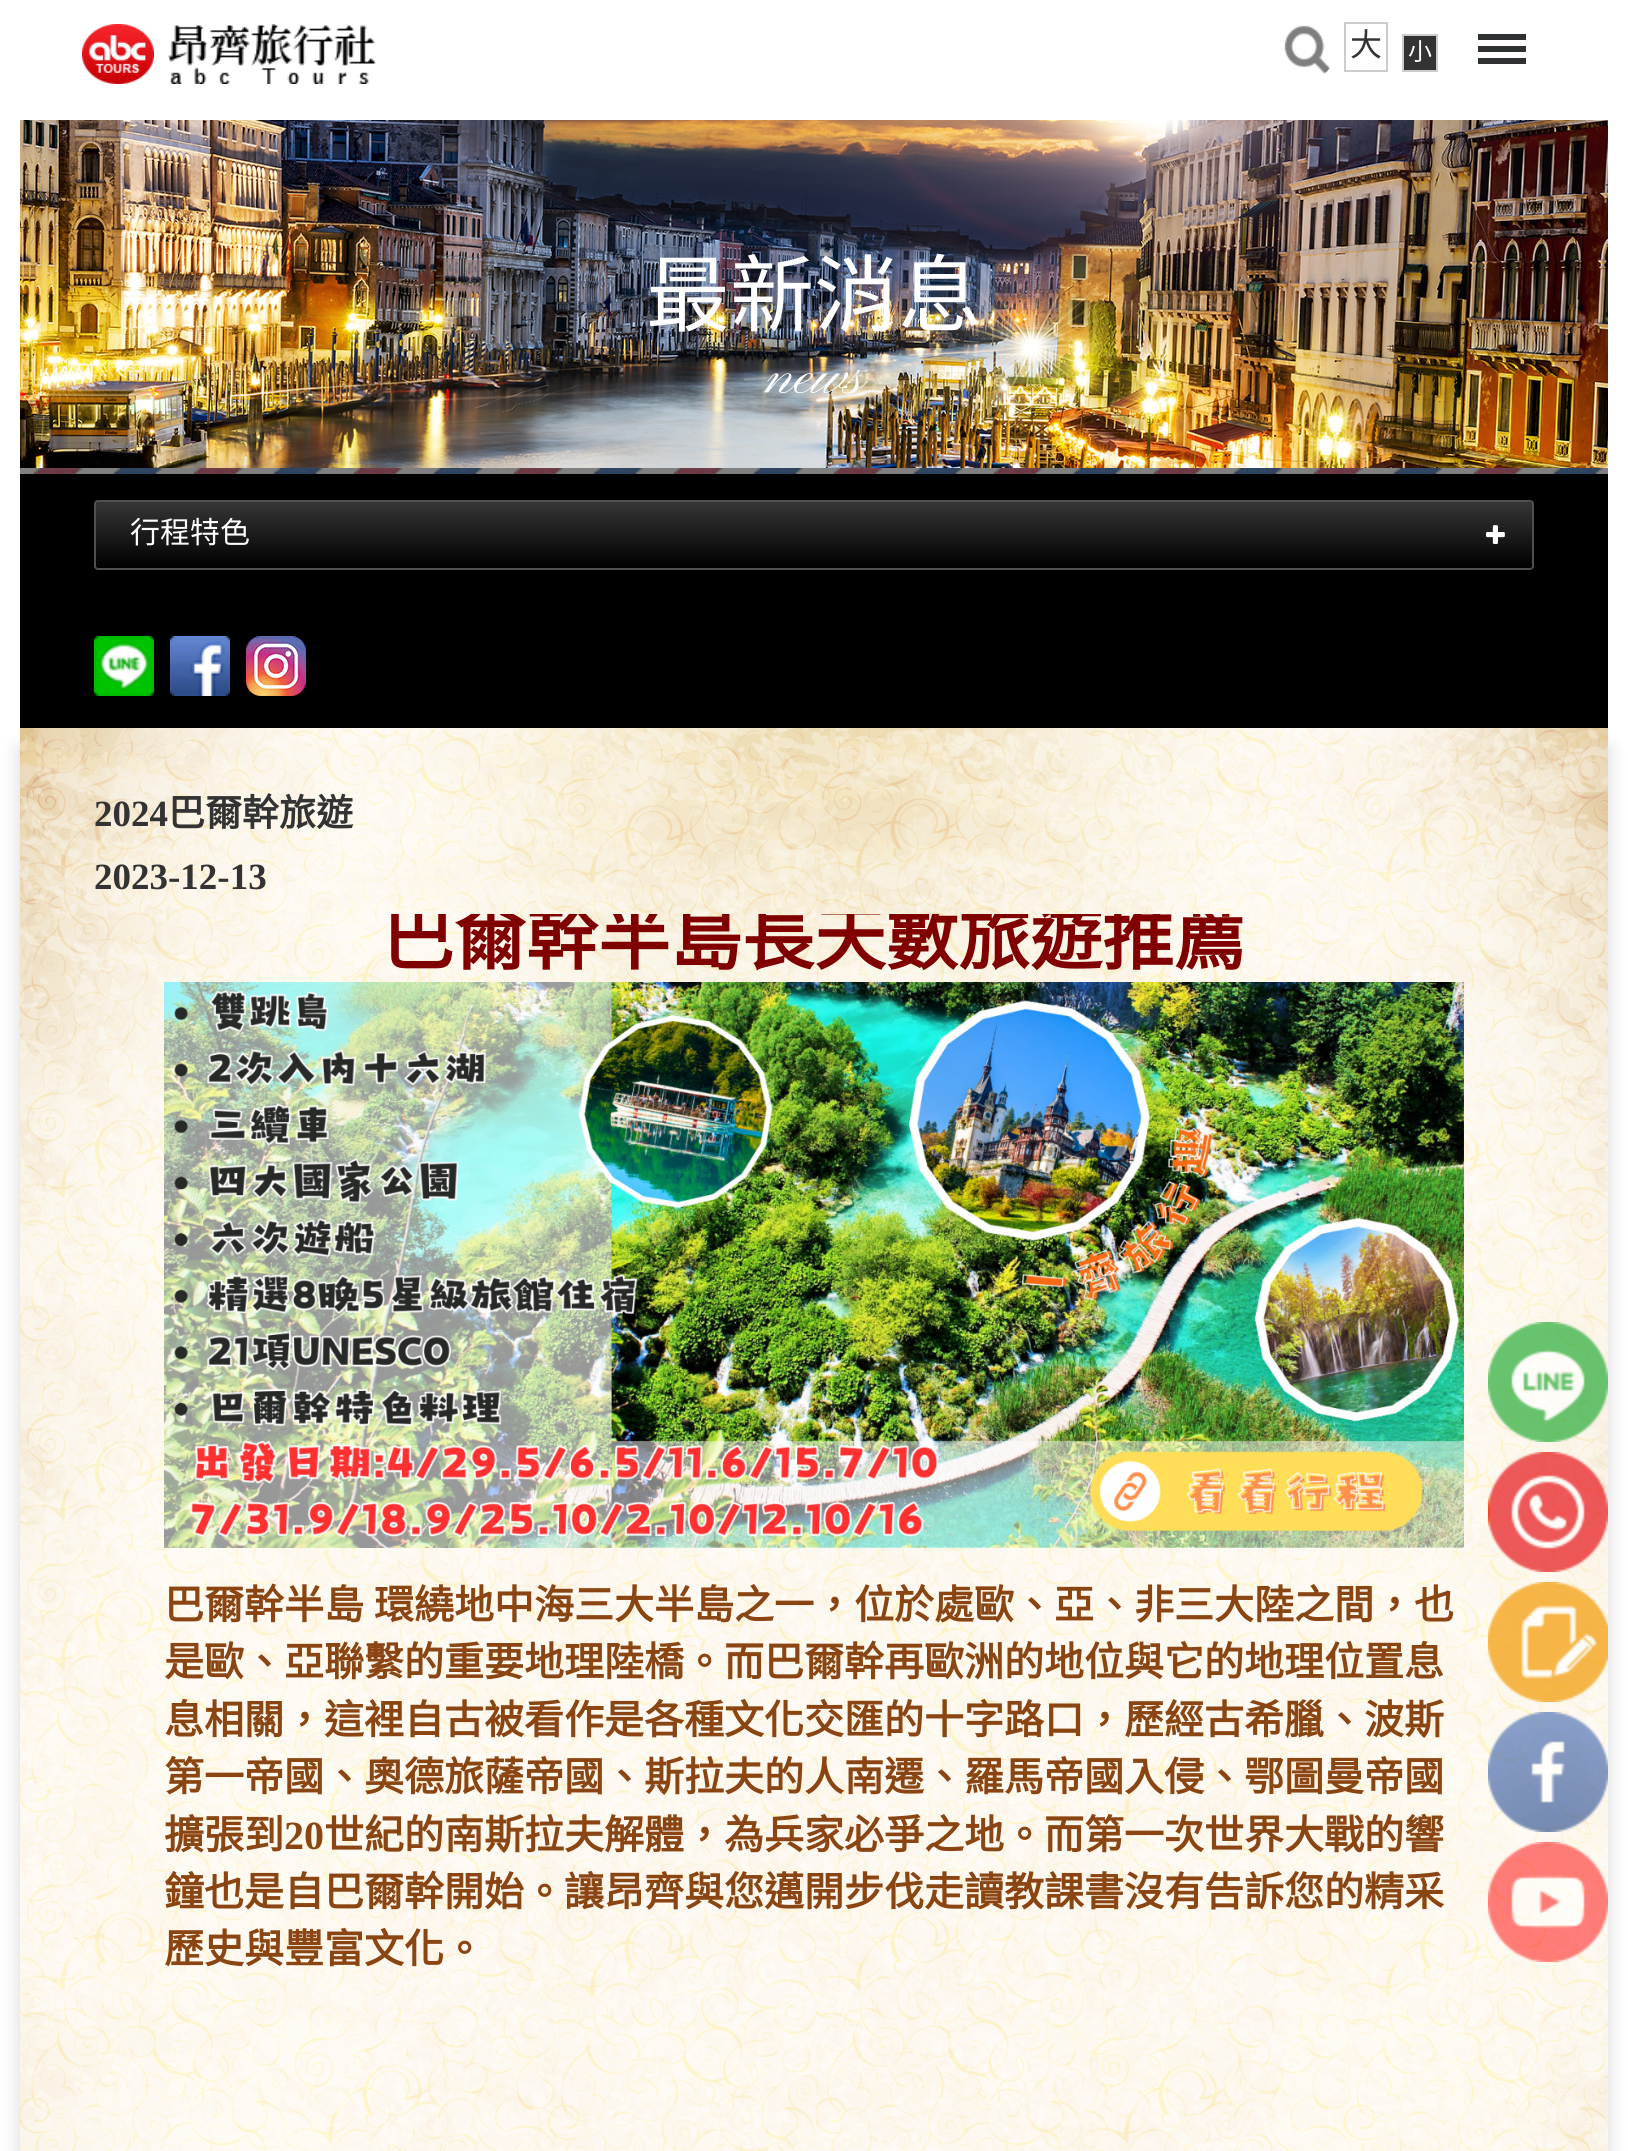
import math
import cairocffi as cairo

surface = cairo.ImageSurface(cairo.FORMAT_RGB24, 1628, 2151)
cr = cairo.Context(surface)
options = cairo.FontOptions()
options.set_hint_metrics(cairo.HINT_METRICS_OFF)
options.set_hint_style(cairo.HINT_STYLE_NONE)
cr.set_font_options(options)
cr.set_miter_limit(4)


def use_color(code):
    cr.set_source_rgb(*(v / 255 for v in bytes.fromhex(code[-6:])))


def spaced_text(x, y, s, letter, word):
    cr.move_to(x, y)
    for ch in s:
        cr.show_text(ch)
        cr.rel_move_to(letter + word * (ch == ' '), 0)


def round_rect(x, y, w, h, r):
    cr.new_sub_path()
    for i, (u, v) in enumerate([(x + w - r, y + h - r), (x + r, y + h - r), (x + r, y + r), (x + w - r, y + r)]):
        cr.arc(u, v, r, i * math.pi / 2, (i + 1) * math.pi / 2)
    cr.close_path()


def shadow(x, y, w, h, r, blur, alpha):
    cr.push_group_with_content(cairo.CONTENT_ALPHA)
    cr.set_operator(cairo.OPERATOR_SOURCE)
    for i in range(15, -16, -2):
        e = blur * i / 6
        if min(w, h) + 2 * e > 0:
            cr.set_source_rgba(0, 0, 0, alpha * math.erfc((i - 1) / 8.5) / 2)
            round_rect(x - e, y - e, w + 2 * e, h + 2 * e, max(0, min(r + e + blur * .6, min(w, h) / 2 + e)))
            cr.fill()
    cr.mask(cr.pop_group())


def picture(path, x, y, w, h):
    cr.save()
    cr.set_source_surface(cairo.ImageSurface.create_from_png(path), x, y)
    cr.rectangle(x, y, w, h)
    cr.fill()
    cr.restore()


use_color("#ffffff")
cr.paint()
picture("img1.png", 82, 24, 72, 60)
picture("img2.png", 168, 24, 208, 60)
picture("img3.png", 1284, 25, 46, 49)
cr.rectangle(1345, 23, 42, 48)
use_color("#cccccc")
cr.stroke()
cr.select_font_face("Noto Sans CJK TC")
cr.set_font_size(32)
use_color("#333333")
cr.move_to(1350, 56)
cr.show_text("大")
cr.rectangle(1403, 35, 34, 36)
cr.fill_preserve()
use_color("#cccccc")
cr.stroke()
cr.set_font_size(24)
use_color("#ffffff")
cr.move_to(1408, 60)
cr.show_text("小")
use_color("#2e3233")
cr.rectangle(1478, 46, 48, 6)
cr.fill()
cr.rectangle(1478, 34, 48, 6)
cr.fill()
cr.rectangle(1478, 58, 48, 6)
cr.fill()
picture("img4.png", 20, 120, 1588, 348)
cr.set_font_size(84)
use_color("#ffffff")
cr.move_to(646, 325)
cr.show_text("最新消息")
cr.select_font_face("Pinyon Script")
cr.set_font_size(59)
cr.move_to(764, 393)
cr.show_text("news")
use_color("#000000")
cr.rectangle(20, 468, 1588, 260)
cr.fill()
picture("img5.png", 20, 468, 1588, 6)
cr.save()
round_rect(94, 500, 1440, 70, 4)
cr.clip()
gradient = cairo.LinearGradient(96, 502, 96, 568)
gradient.add_color_stop_rgba(0.05, 0.2, 0.2, 0.2, 1)
gradient.add_color_stop_rgba(1, 0, 0, 0, 1)
cr.set_source(gradient)
cr.rectangle(94, 502, 1440, 66)
cr.fill()
cr.restore()
round_rect(95, 501, 1438, 68, 3)
use_color("#4f4f4f")
cr.stroke()
cr.select_font_face("Noto Sans CJK TC")
cr.set_font_size(30)
use_color("#ffffff")
cr.move_to(130, 543)
cr.show_text("行程特色")
picture("img6.png", 1486, 525, 19, 19)
picture("img7.png", 94, 636, 60, 60)
picture("img8.png", 170, 636, 60, 60)
picture("img9.png", 246, 636, 60, 60)
use_color("#000000")
shadow(20, 748, 1588, 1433, 0, 10, 0.15)
picture("img10.png", 20, 728, 1588, 1423)
cr.select_font_face("Liberation Serif", cairo.FONT_SLANT_NORMAL, cairo.FONT_WEIGHT_BOLD)
cr.set_font_size(37)
use_color("#333333")
cr.move_to(94, 826)
cr.show_text("2024")
cr.select_font_face("Noto Sans CJK TC", cairo.FONT_SLANT_NORMAL, cairo.FONT_WEIGHT_BOLD)
cr.move_to(168, 826)
cr.show_text("巴爾幹旅遊")
cr.select_font_face("Liberation Serif", cairo.FONT_SLANT_NORMAL, cairo.FONT_WEIGHT_BOLD)
cr.move_to(94, 889)
cr.show_text("2023-12-13")
cr.save()
cr.rectangle(130, 914, 1368, 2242)
cr.clip()
cr.select_font_face("Noto Sans CJK TC", cairo.FONT_SLANT_NORMAL, cairo.FONT_WEIGHT_BOLD)
cr.set_font_size(72)
use_color("#800000")
cr.move_to(382, 964)
cr.show_text("巴爾幹半島長天數旅遊推薦")
cr.restore()
picture("img11.png", 164, 982, 1300, 566)
cr.select_font_face("Noto Sans CJK TC", cairo.FONT_SLANT_NORMAL, cairo.FONT_WEIGHT_BOLD)
cr.set_font_size(40)
use_color("#8b4513")
spaced_text(164, 1619, "巴爾幹半島 環繞地中海三大半島之一，位於處歐、亞、非三大陸之間，也", 0, 1)
cr.move_to(164, 1676)
cr.show_text("是歐、亞聯繫的重要地理陸橋。而巴爾幹再歐洲的地位與它的地理位置息")
cr.move_to(164, 1734)
cr.show_text("息相關，這裡自古被看作是各種文化交匯的十字路口，歷經古希臘、波斯")
cr.move_to(164, 1791)
cr.show_text("第一帝國、奧德旅薩帝國、斯拉夫的人南遷、羅馬帝國入侵、鄂圖曼帝國")
cr.move_to(164, 1849)
cr.show_text("擴張到")
cr.select_font_face("Liberation Serif", cairo.FONT_SLANT_NORMAL, cairo.FONT_WEIGHT_BOLD)
cr.move_to(284, 1849)
cr.show_text("20")
cr.select_font_face("Noto Sans CJK TC", cairo.FONT_SLANT_NORMAL, cairo.FONT_WEIGHT_BOLD)
cr.move_to(324, 1849)
cr.show_text("世紀的南斯拉夫解體，為兵家必爭之地。而第一次世界大戰的響")
cr.move_to(164, 1906)
cr.show_text("鐘也是自巴爾幹開始。讓昂齊與您邁開步伐走讀教課書沒有告訴您的精采")
cr.move_to(164, 1963)
cr.show_text("歷史與豐富文化。")
picture("img12.png", 1488, 1322, 120, 120)
picture("img13.png", 1488, 1452, 120, 120)
picture("img14.png", 1488, 1582, 120, 120)
picture("img15.png", 1488, 1712, 120, 120)
picture("img16.png", 1488, 1842, 120, 120)
surface.write_to_png("result.png")
